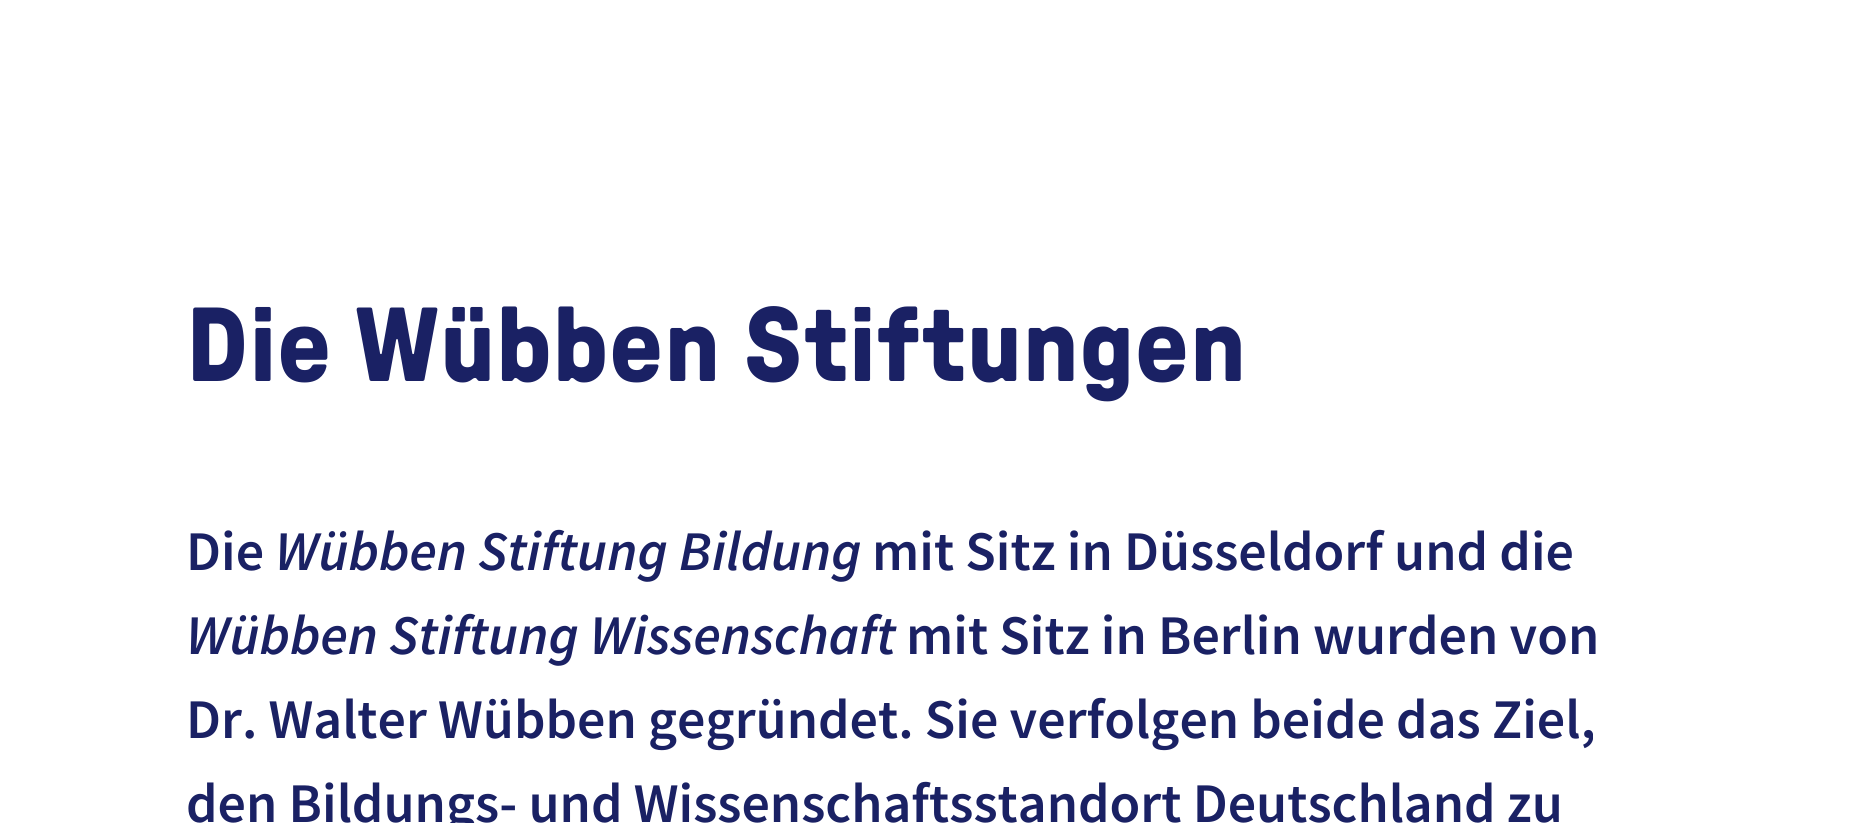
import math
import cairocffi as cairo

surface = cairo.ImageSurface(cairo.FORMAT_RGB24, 1855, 823)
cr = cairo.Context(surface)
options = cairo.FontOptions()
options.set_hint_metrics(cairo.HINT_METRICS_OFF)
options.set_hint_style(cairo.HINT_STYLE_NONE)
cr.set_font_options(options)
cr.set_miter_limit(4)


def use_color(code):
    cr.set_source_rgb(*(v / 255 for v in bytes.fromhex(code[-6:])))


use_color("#ffffff")
cr.paint()
cr.select_font_face("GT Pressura", cairo.FONT_SLANT_NORMAL, cairo.FONT_WEIGHT_BOLD)
cr.set_font_size(105)
use_color("#1a2164")
cr.move_to(186, 381)
cr.show_text("Die Wübben Stiftungen")
cr.select_font_face("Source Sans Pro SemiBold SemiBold")
cr.set_font_size(56)
cr.move_to(186, 570)
cr.show_text("Die")
cr.select_font_face("Source Sans Pro SemiBold SemiBold", cairo.FONT_SLANT_ITALIC)
cr.move_to(275, 570)
cr.show_text("Wübben Stiftung Bildung")
cr.select_font_face("Source Sans Pro SemiBold SemiBold")
cr.move_to(872, 570)
cr.show_text("mit Sitz in Düsseldorf und die")
cr.select_font_face("Source Sans Pro SemiBold SemiBold", cairo.FONT_SLANT_ITALIC)
cr.move_to(186, 654)
cr.show_text("Wübben Stiftung Wissenschaft")
cr.select_font_face("Source Sans Pro SemiBold SemiBold")
cr.move_to(906, 654)
cr.show_text("mit Sitz in Berlin wurden von")
cr.move_to(186, 738)
cr.show_text("Dr. Walter Wübben gegründet. Sie verfolgen beide das Ziel,")
cr.move_to(186, 822)
cr.show_text("den Bildungs- und Wissenschaftsstandort Deutschland zu")
surface.write_to_png("result.png")
